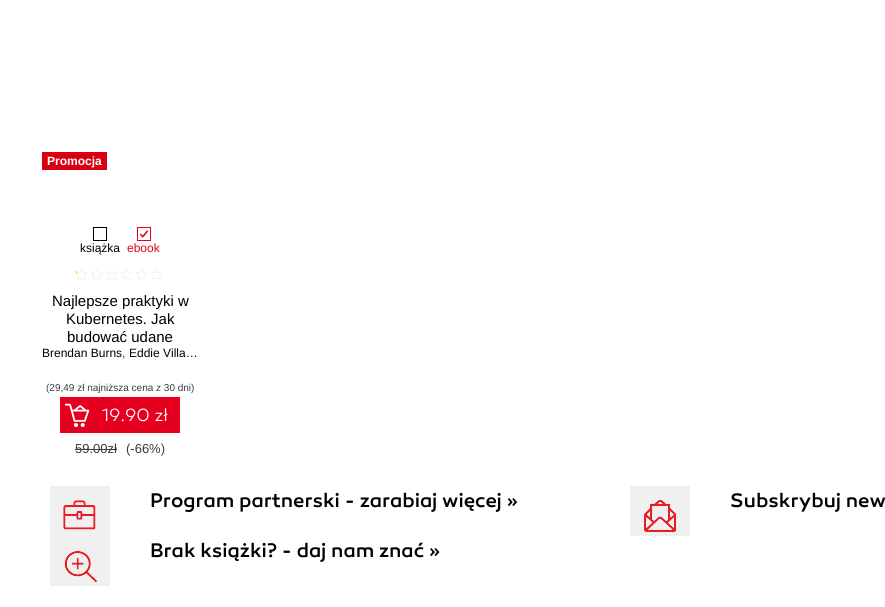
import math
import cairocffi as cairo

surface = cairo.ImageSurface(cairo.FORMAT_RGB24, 885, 607)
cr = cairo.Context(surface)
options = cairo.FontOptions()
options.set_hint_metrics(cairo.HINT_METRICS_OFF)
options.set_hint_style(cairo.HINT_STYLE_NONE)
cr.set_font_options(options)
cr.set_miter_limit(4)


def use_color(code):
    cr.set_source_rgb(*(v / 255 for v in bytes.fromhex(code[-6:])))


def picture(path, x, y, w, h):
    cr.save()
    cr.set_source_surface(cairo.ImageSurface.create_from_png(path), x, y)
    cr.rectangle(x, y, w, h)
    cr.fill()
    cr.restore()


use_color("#ffffff")
cr.paint()
use_color("#da0013")
cr.rectangle(42, 152, 65, 18)
cr.fill()
cr.select_font_face("Liberation Sans", cairo.FONT_SLANT_NORMAL, cairo.FONT_WEIGHT_BOLD)
cr.set_font_size(12)
use_color("#ffffff")
cr.move_to(47, 165)
cr.show_text("Promocja")
cr.rectangle(93.5, 227.5, 13, 13)
use_color("#000000")
cr.set_line_width(1)
cr.stroke()
cr.select_font_face("Liberation Sans")
cr.move_to(80, 252)
cr.show_text("książka")
cr.rectangle(137.5, 227.5, 13, 13)
use_color("#e4001e")
cr.stroke()
picture("img1.png", 140, 230, 8, 8)
cr.move_to(127, 252)
cr.show_text("ebook")
picture("img2.png", 76, 269, 87, 11)
picture("img3.png", 76, 271, 1, 9)
cr.set_font_size(15)
use_color("#000000")
cr.move_to(52, 306)
cr.show_text("Najlepsze praktyki w")
cr.move_to(66, 324)
cr.show_text("Kubernetes. Jak")
cr.move_to(67, 342)
cr.show_text("budować udane")
cr.set_font_size(12)
cr.move_to(42, 357)
cr.show_text("Brendan Burns")
use_color("#3b3b3b")
cr.move_to(122, 357)
cr.show_text(",")
use_color("#000000")
cr.move_to(129, 357)
cr.show_text("Eddie Villa…")
cr.set_font_size(10)
use_color("#3b3b3b")
cr.move_to(46, 391)
cr.show_text("(29,49 zł najniższa cena z 30 dni)")
use_color("#e4001e")
cr.rectangle(60, 397, 120, 36)
cr.fill()
picture("img4.png", 65, 403, 25, 24)
cr.select_font_face("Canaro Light")
cr.set_font_size(18)
use_color("#ffffff")
cr.move_to(102, 421)
cr.show_text("19.90 zł")
cr.select_font_face("Liberation Sans")
cr.set_font_size(13)
use_color("#3b3b3b")
cr.move_to(75, 453)
cr.show_text("59.00zł")
cr.rectangle(75, 449, 42, 1)
cr.fill()
cr.move_to(126, 453)
cr.show_text("(-66%)")
use_color("#f0f0f0")
cr.rectangle(50, 486, 60, 100)
cr.fill()
picture("img5.png", 63, 500, 33, 30)
cr.select_font_face("Canaro Medium")
cr.set_font_size(20)
use_color("#000000")
cr.move_to(150, 507)
cr.show_text("Program partnerski - zarabiaj więcej »")
picture("img6.png", 64, 551, 33, 32)
cr.move_to(150, 557)
cr.show_text("Brak książki? - daj nam znać »")
use_color("#f0f0f0")
cr.rectangle(630, 486, 60, 50)
cr.fill()
picture("img7.png", 644, 499, 33, 33)
use_color("#000000")
cr.move_to(730, 507)
cr.show_text("Subskrybuj new")
surface.write_to_png("result.png")
